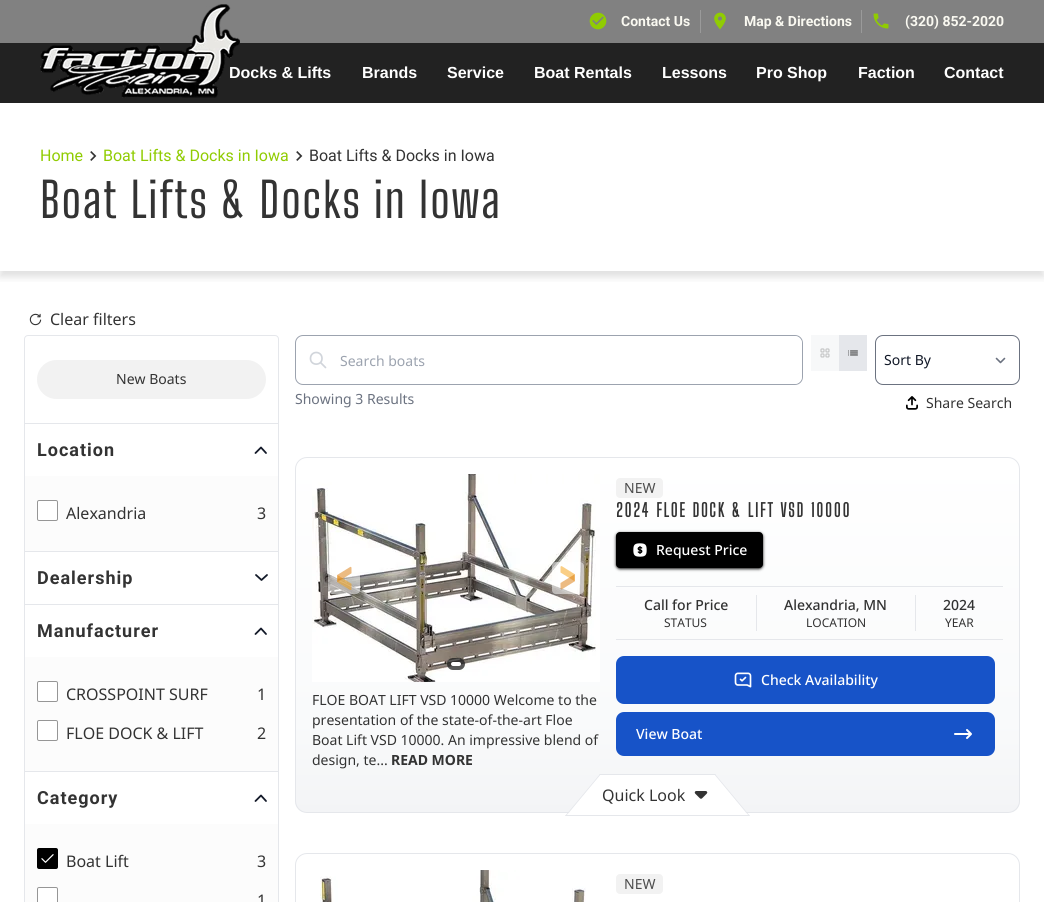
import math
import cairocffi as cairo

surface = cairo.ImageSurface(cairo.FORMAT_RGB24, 1044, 902)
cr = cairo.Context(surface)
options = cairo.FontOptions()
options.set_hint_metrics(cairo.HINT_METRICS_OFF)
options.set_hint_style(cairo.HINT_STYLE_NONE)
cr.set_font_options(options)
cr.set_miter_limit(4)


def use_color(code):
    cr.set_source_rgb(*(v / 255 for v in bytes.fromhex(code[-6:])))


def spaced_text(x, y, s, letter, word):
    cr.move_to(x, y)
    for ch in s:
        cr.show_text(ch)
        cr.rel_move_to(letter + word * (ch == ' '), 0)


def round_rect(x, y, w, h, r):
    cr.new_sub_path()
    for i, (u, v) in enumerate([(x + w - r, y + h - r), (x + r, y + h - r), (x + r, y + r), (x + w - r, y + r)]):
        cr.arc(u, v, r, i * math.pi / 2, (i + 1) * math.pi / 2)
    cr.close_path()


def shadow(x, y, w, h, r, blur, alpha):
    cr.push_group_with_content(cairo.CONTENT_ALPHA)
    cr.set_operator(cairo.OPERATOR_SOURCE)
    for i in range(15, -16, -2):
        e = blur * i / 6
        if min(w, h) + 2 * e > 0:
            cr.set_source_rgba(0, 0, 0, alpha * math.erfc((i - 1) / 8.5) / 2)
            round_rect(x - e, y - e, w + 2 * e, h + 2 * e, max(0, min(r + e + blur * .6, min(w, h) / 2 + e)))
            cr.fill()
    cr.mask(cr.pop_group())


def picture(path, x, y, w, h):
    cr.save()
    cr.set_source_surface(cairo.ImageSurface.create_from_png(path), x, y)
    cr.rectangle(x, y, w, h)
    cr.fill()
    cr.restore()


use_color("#ffffff")
cr.paint()
use_color("#818181")
cr.rectangle(0, 0, 1044, 43)
cr.fill()
picture("img1.png", 589, 12, 18, 18)
cr.select_font_face("Roboto", cairo.FONT_SLANT_NORMAL, cairo.FONT_WEIGHT_BOLD)
cr.set_font_size(14)
use_color("#faf9f1")
cr.move_to(621, 26)
cr.show_text("Contact Us")
use_color("#9a9a9a")
cr.rectangle(700, 10, 1, 23)
cr.fill()
picture("img2.png", 714, 12, 12, 18)
use_color("#faf9f1")
cr.move_to(744, 26)
cr.show_text("Map & Directions")
use_color("#9a9a9a")
cr.rectangle(861, 10, 1, 23)
cr.fill()
picture("img3.png", 873, 13, 16, 16)
use_color("#faf9f1")
cr.move_to(905, 26)
cr.show_text("(320) 852-2020")
cr.save()
cr.rectangle(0, 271, 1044, 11)
cr.clip()
use_color("#636363")
shadow(0, 109, 1044, 168, 0, 4, 0.2)
cr.restore()
use_color("#222222")
cr.rectangle(0, 43, 1044, 60)
cr.fill()
cr.select_font_face("Liberation Sans", cairo.FONT_SLANT_NORMAL, cairo.FONT_WEIGHT_BOLD)
cr.set_font_size(16)
use_color("#ffffff")
cr.move_to(229, 78)
cr.show_text("Docks & Lifts")
picture("img4.png", 40, 4, 200, 94)
cr.move_to(362, 78)
cr.show_text("Brands")
cr.move_to(447, 78)
cr.show_text("Service")
cr.move_to(534, 78)
cr.show_text("Boat Rentals")
cr.move_to(662, 78)
cr.show_text("Lessons")
cr.move_to(756, 78)
cr.show_text("Pro Shop")
cr.move_to(858, 78)
cr.show_text("Faction")
cr.move_to(944, 78)
cr.show_text("Contact")
cr.select_font_face("Roboto")
use_color("#90cc02")
cr.move_to(40, 161)
cr.show_text("Home")
picture("img5.png", 90, 151, 7, 10)
cr.move_to(103, 161)
cr.show_text("Boat Lifts & Docks in Iowa")
picture("img5.png", 296, 151, 7, 10)
use_color("#333333")
cr.move_to(309, 161)
cr.show_text("Boat Lifts & Docks in Iowa")
cr.select_font_face("Big Shoulders Text Thin")
cr.set_font_size(48)
spaced_text(40, 218, "Boat Lifts & Docks in Iowa", 2, 0)
round_rect(24.5, 335.5, 254, 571, 3.5)
use_color("#e5e7eb")
cr.set_line_width(1)
cr.stroke()
picture("img6.png", 29, 313, 13, 13)
cr.select_font_face("Noto Sans")
cr.set_font_size(16)
use_color("#333333")
cr.move_to(50, 325)
cr.show_text("Clear filters")
use_color("#f2f2f2")
round_rect(37, 360, 229, 39, 19.5)
cr.fill()
cr.set_font_size(14)
use_color("#333333")
cr.move_to(116, 384)
cr.show_text("New Boats")
use_color("#e5e7eb")
cr.rectangle(25, 423, 253, 1)
cr.fill()
cr.select_font_face("Roboto", cairo.FONT_SLANT_NORMAL, cairo.FONT_WEIGHT_BOLD)
cr.set_font_size(18)
use_color("#333333")
spaced_text(37, 456, "Location", 1, 0)
cr.new_path()
cr.move_to(266, 453)
cr.line_to(261, 447.5)
cr.line_to(255.5, 453)
use_color("#131a29")
cr.set_line_width(1.8)
cr.set_line_cap(cairo.LINE_CAP_ROUND)
cr.set_line_join(cairo.LINE_JOIN_ROUND)
cr.stroke()
use_color("#fcfcfc")
cr.rectangle(25, 476, 253, 75)
cr.fill()
use_color("#ffffff")
round_rect(37.5, 500.5, 20, 20, 1.5)
cr.fill_preserve()
use_color("#969696")
cr.set_line_width(1)
cr.set_line_cap(cairo.LINE_CAP_BUTT)
cr.set_line_join(cairo.LINE_JOIN_MITER)
cr.stroke()
cr.select_font_face("Noto Sans")
cr.set_font_size(16)
use_color("#333333")
cr.move_to(66, 519)
cr.show_text("Alexandria")
cr.move_to(257, 519)
cr.show_text("3")
use_color("#e5e7eb")
cr.rectangle(25, 551, 253, 1)
cr.fill()
cr.select_font_face("Roboto", cairo.FONT_SLANT_NORMAL, cairo.FONT_WEIGHT_BOLD)
cr.set_font_size(18)
use_color("#333333")
spaced_text(37, 584, "Dealership", 1, 0)
cr.new_path()
cr.move_to(256, 575)
cr.line_to(261.5, 580)
cr.line_to(267, 575)
use_color("#131a29")
cr.set_line_width(1.8)
cr.set_line_cap(cairo.LINE_CAP_ROUND)
cr.set_line_join(cairo.LINE_JOIN_ROUND)
cr.stroke()
use_color("#e5e7eb")
cr.rectangle(25, 604, 253, 1)
cr.fill()
use_color("#333333")
spaced_text(37, 637, "Manufacturer", 1, 0)
cr.new_path()
cr.move_to(266, 634)
cr.line_to(261, 628.5)
cr.line_to(255.5, 634)
use_color("#131a29")
cr.stroke()
use_color("#fcfcfc")
cr.rectangle(25, 657, 253, 114)
cr.fill()
use_color("#ffffff")
round_rect(37.5, 681.5, 20, 20, 1.5)
cr.fill_preserve()
use_color("#969696")
cr.set_line_width(1)
cr.set_line_cap(cairo.LINE_CAP_BUTT)
cr.set_line_join(cairo.LINE_JOIN_MITER)
cr.stroke()
cr.select_font_face("Noto Sans")
cr.set_font_size(16)
use_color("#333333")
cr.move_to(66, 700)
cr.show_text("CROSSPOINT SURF")
cr.move_to(257, 700)
cr.show_text("1")
use_color("#ffffff")
round_rect(37.5, 720.5, 20, 20, 1.5)
cr.fill_preserve()
use_color("#969696")
cr.stroke()
use_color("#333333")
cr.move_to(66, 739)
cr.show_text("FLOE DOCK & LIFT")
cr.move_to(257, 739)
cr.show_text("2")
use_color("#e5e7eb")
cr.rectangle(25, 771, 253, 1)
cr.fill()
cr.select_font_face("Roboto", cairo.FONT_SLANT_NORMAL, cairo.FONT_WEIGHT_BOLD)
cr.set_font_size(18)
use_color("#333333")
spaced_text(37, 804, "Category", 1, 0)
cr.new_path()
cr.move_to(266, 801)
cr.line_to(261, 795.5)
cr.line_to(255.5, 801)
use_color("#131a29")
cr.set_line_width(1.8)
cr.set_line_cap(cairo.LINE_CAP_ROUND)
cr.set_line_join(cairo.LINE_JOIN_ROUND)
cr.stroke()
use_color("#fcfcfc")
cr.rectangle(25, 824, 253, 78)
cr.fill()
use_color("#000000")
round_rect(37, 848, 21, 21, 2)
cr.fill()
picture("img7.png", 41, 854, 13, 9)
cr.select_font_face("Noto Sans")
cr.set_font_size(16)
use_color("#333333")
cr.move_to(66, 867)
cr.show_text("Boat Lift")
cr.move_to(257, 867)
cr.show_text("3")
use_color("#ffffff")
round_rect(37.5, 887.5, 20, 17, 1.5)
cr.fill_preserve()
use_color("#969696")
cr.set_line_width(1)
cr.set_line_cap(cairo.LINE_CAP_BUTT)
cr.set_line_join(cairo.LINE_JOIN_MITER)
cr.stroke()
use_color("#333333")
cr.move_to(257, 906)
cr.show_text("1")
round_rect(295.5, 335.5, 507, 49, 7.5)
use_color("#9ca3af")
cr.stroke()
cr.new_path()
cr.move_to(325.5, 367.5)
cr.line_to(320.5, 362.5)
cr.move_to(322, 358.5)
cr.curve_to(322, 366, 310.5, 366, 310.5, 358.5)
cr.curve_to(310.5, 350.5, 322, 350.5, 322, 358.5)
cr.close_path()
use_color("#d1d5db")
cr.set_line_width(1.7)
cr.set_line_cap(cairo.LINE_CAP_ROUND)
cr.set_line_join(cairo.LINE_JOIN_ROUND)
cr.stroke()
cr.save()
round_rect(296, 336, 506, 48, 7)
cr.clip()
use_color("#ffffff")
cr.new_path()
cr.move_to(340, 336)
cr.line_to(794, 336)
cr.curve_to(798.5, 336, 802, 339.5, 802, 344)
cr.line_to(802, 376)
cr.curve_to(802, 380.5, 798.5, 384, 794, 384)
cr.line_to(340, 384)
cr.close_path()
cr.fill()
cr.restore()
cr.set_font_size(14)
use_color("#9ca3af")
cr.move_to(340, 366)
cr.show_text("Search boats")
use_color("#f7f8f9")
cr.rectangle(811, 335, 28, 36)
cr.fill()
picture("img8.png", 820, 348, 10, 10)
use_color("#e5e7eb")
cr.rectangle(839, 335, 28, 36)
cr.fill()
picture("img9.png", 848, 350, 10, 6)
cr.new_path()
cr.move_to(996.5, 358.5)
cr.line_to(1000.5, 362.5)
cr.line_to(1004.5, 358.5)
use_color("#6b7280")
cr.set_line_width(1.6)
cr.stroke()
round_rect(875.5, 335.5, 144, 49, 7.5)
cr.set_line_width(1)
cr.set_line_cap(cairo.LINE_CAP_BUTT)
cr.set_line_join(cairo.LINE_JOIN_MITER)
cr.stroke()
use_color("#111827")
cr.move_to(884, 365)
cr.show_text("Sort By")
use_color("#6b7280")
cr.move_to(295, 404)
cr.show_text("Showing 3 Results")
picture("img10.png", 906, 396, 12, 14)
use_color("#333333")
cr.move_to(926, 408)
cr.show_text("Share Search")
cr.save()
round_rect(295, 457, 725, 356, 12)
cr.clip()
gradient = cairo.LinearGradient(658, 458, 658, 812)
gradient.add_color_stop_rgba(0, 1, 1, 1, 1)
gradient.add_color_stop_rgba(0.75, 0.976, 0.98, 0.984, 1)
gradient.add_color_stop_rgba(1, 0.953, 0.957, 0.965, 1)
cr.set_source(gradient)
cr.rectangle(295, 458, 725, 354)
cr.fill()
cr.restore()
round_rect(295.5, 457.5, 724, 355, 11.5)
use_color("#e5e7eb")
cr.stroke()
picture("img11.png", 312, 474, 288, 208)
cr.set_source_rgba(1, 1, 1, 0.5)
round_rect(328, 562, 32, 32, 4)
cr.fill()
picture("img12.png", 337, 566, 15, 24)
round_rect(552, 562, 32, 32, 4)
cr.fill()
picture("img13.png", 560, 566, 15, 24)
cr.set_source_rgba(0.133, 0.133, 0.133, 0.75)
round_rect(447, 658, 18, 12, 6)
cr.fill()
use_color("#ffffff")
round_rect(451, 662, 10, 4, 2)
cr.fill()
use_color("#333333")
cr.move_to(312, 705)
cr.show_text("FLOE BOAT LIFT VSD 10000 Welcome to the")
cr.move_to(312, 725)
cr.show_text("presentation of the state-of-the-art Floe")
cr.move_to(312, 745)
cr.show_text("Boat Lift VSD 10000. An impressive blend of")
cr.move_to(312, 765)
cr.show_text("design, te...")
cr.select_font_face("Noto Sans", cairo.FONT_SLANT_NORMAL, cairo.FONT_WEIGHT_BOLD)
cr.move_to(391, 765)
cr.show_text("READ MORE")
use_color("#f2f2f2")
round_rect(616, 478, 47, 20, 4)
cr.fill()
cr.select_font_face("Noto Sans")
use_color("#4d4d4d")
cr.move_to(624, 493)
cr.show_text("NEW")
cr.select_font_face("Big Shoulders Display", cairo.FONT_SLANT_NORMAL, cairo.FONT_WEIGHT_BOLD)
cr.set_font_size(18)
use_color("#333333")
spaced_text(616, 517, "2024 FLOE DOCK & LIFT VSD 10000", 2, 0)
use_color("#333333")
shadow(617, 534, 145, 34, 3, 1, 1)
shadow(616, 533, 147, 36, 4, 1.5, 1)
use_color("#000000")
round_rect(616, 532, 147, 36, 4)
cr.fill()
picture("img14.png", 633, 543, 14, 14)
cr.select_font_face("Noto Sans Medium")
cr.set_font_size(14)
use_color("#ffffff")
cr.move_to(656, 555)
cr.show_text("Request Price")
use_color("#e5e7eb")
cr.rectangle(616, 586, 387, 1)
cr.fill()
use_color("#333333")
cr.move_to(644, 610)
cr.show_text("Call for Price")
cr.select_font_face("Noto Sans")
cr.set_font_size(12)
cr.move_to(664, 627)
cr.show_text("STATUS")
use_color("#e5e7eb")
cr.rectangle(756, 595, 1, 36)
cr.fill()
cr.select_font_face("Noto Sans Medium")
cr.set_font_size(14)
use_color("#333333")
cr.move_to(784, 610)
cr.show_text("Alexandria, MN")
cr.select_font_face("Noto Sans")
cr.set_font_size(12)
cr.move_to(806, 627)
cr.show_text("LOCATION")
use_color("#e5e7eb")
cr.rectangle(915, 595, 1, 36)
cr.fill()
cr.select_font_face("Noto Sans Medium")
cr.set_font_size(14)
use_color("#333333")
cr.move_to(943, 610)
cr.show_text("2024")
cr.select_font_face("Noto Sans")
cr.set_font_size(12)
cr.move_to(945, 627)
cr.show_text("YEAR")
use_color("#e5e7eb")
cr.rectangle(616, 639, 387, 1)
cr.fill()
use_color("#1753c8")
round_rect(616, 656, 379, 48, 8)
cr.fill()
picture("img15.png", 734, 672, 18, 16)
cr.select_font_face("Noto Sans Medium")
cr.set_font_size(14)
use_color("#ffffff")
cr.move_to(761, 685)
cr.show_text("Check Availability")
use_color("#1753c8")
round_rect(616, 712, 379, 44, 8)
cr.fill()
use_color("#ffffff")
cr.move_to(636, 739)
cr.show_text("View Boat")
cr.new_path()
cr.move_to(955, 734)
cr.line_to(971, 734)
cr.move_to(971, 734)
cr.line_to(967, 730)
cr.move_to(971, 734)
cr.line_to(967, 738)
cr.set_line_width(2)
cr.set_line_cap(cairo.LINE_CAP_ROUND)
cr.set_line_join(cairo.LINE_JOIN_ROUND)
cr.stroke()
cr.new_path()
cr.move_to(600, 775)
cr.line_to(713, 775)
cr.line_to(680, 815)
cr.line_to(567, 815)
cr.close_path()
cr.fill()
use_color("#e5e7eb")
cr.new_path()
cr.move_to(600, 774)
cr.line_to(714, 774)
cr.line_to(713, 775)
cr.line_to(599, 775)
cr.close_path()
cr.fill()
cr.new_path()
cr.move_to(566, 815)
cr.line_to(680, 815)
cr.line_to(679, 816)
cr.line_to(565, 816)
cr.close_path()
cr.fill()
cr.new_path()
cr.move_to(600, 774)
cr.line_to(601, 774)
cr.line_to(566, 816)
cr.line_to(565, 816)
cr.close_path()
cr.fill()
use_color("#ffffff")
cr.new_path()
cr.move_to(602, 775)
cr.line_to(715, 775)
cr.line_to(748, 815)
cr.line_to(635, 815)
cr.close_path()
cr.fill()
use_color("#e5e7eb")
cr.new_path()
cr.move_to(601, 774)
cr.line_to(715, 774)
cr.line_to(716, 775)
cr.line_to(602, 775)
cr.close_path()
cr.fill()
cr.new_path()
cr.move_to(714, 774)
cr.line_to(715, 774)
cr.line_to(750, 816)
cr.line_to(749, 816)
cr.close_path()
cr.fill()
cr.new_path()
cr.move_to(635, 815)
cr.line_to(749, 815)
cr.line_to(750, 816)
cr.line_to(636, 816)
cr.close_path()
cr.fill()
cr.select_font_face("Noto Sans")
cr.set_font_size(16)
use_color("#333333")
cr.move_to(602, 801)
cr.show_text("Quick Look")
picture("img16.png", 694, 791, 14, 8)
round_rect(295.5, 853.5, 724, 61, 11.5)
use_color("#e5e7eb")
cr.set_line_width(1)
cr.set_line_cap(cairo.LINE_CAP_BUTT)
cr.set_line_join(cairo.LINE_JOIN_MITER)
cr.stroke()
picture("img17.png", 320, 870, 266, 32)
use_color("#f2f2f2")
round_rect(616, 874, 47, 20, 4)
cr.fill()
cr.set_font_size(14)
use_color("#4d4d4d")
cr.move_to(624, 889)
cr.show_text("NEW")
surface.write_to_png("result.png")
